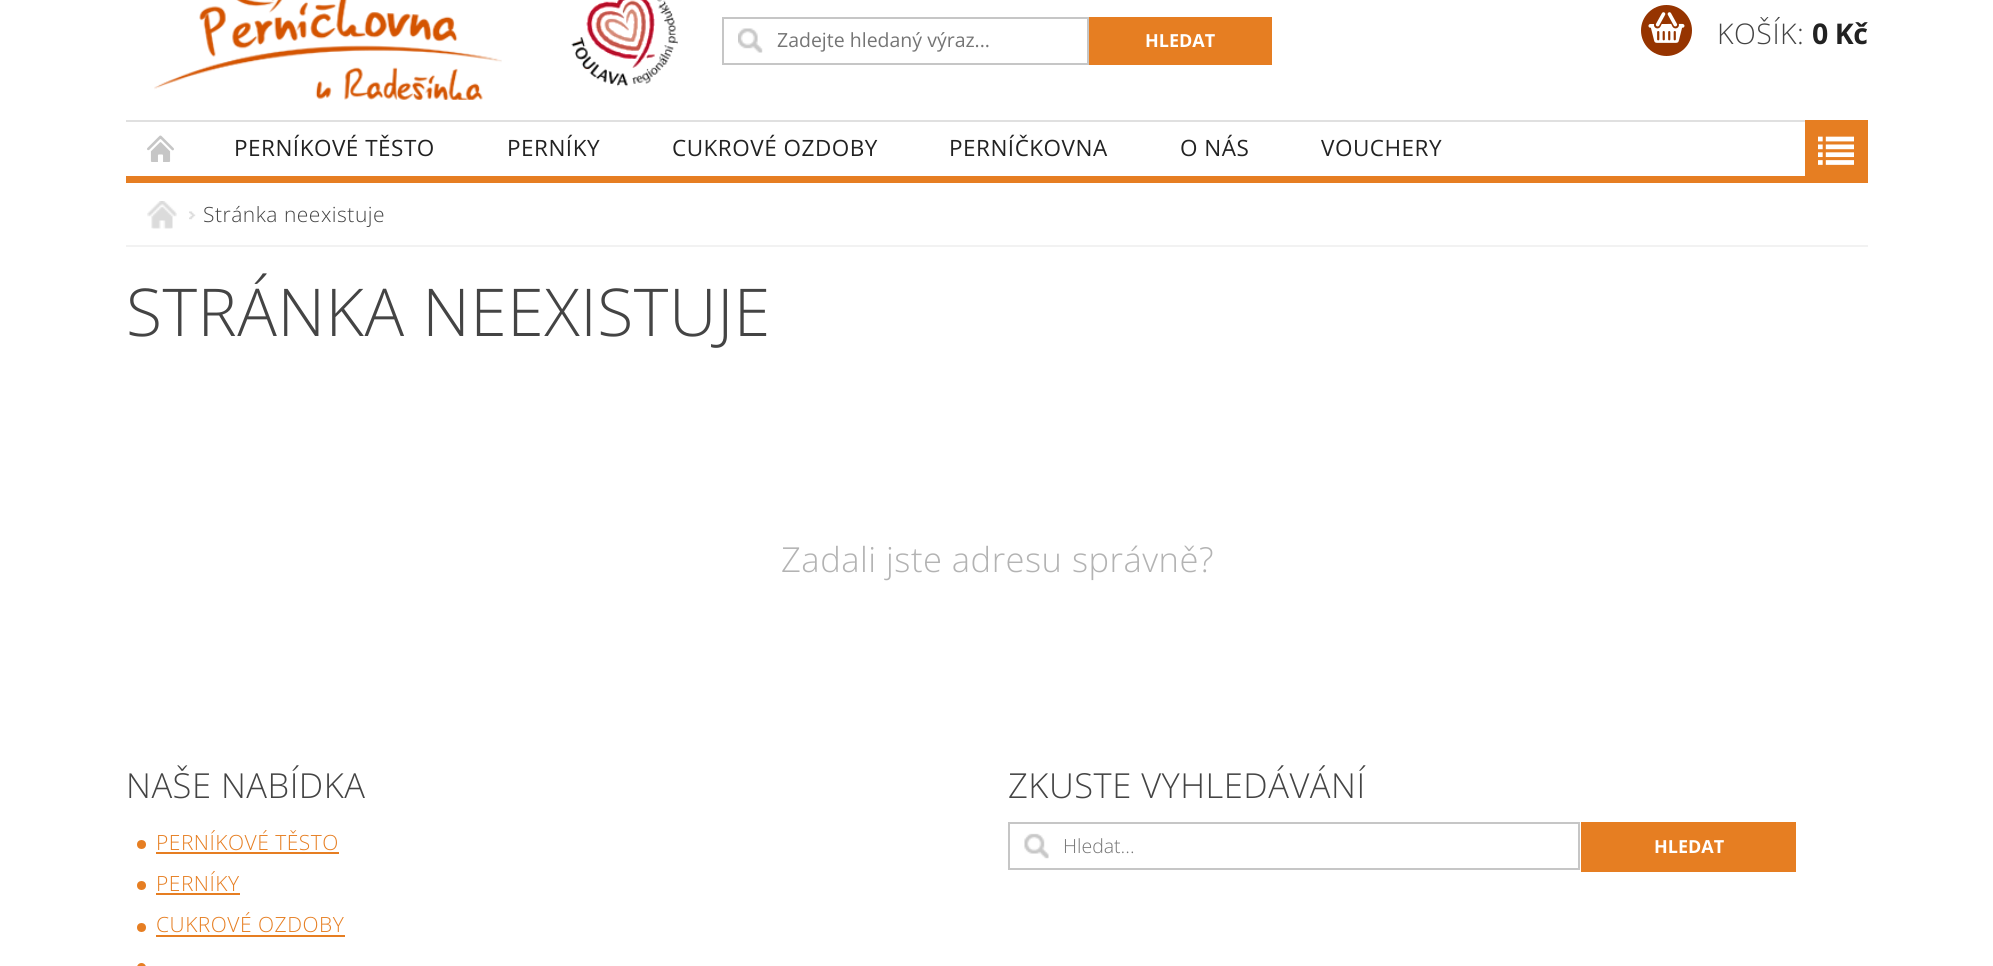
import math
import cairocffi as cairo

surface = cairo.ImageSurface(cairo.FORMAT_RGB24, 1993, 966)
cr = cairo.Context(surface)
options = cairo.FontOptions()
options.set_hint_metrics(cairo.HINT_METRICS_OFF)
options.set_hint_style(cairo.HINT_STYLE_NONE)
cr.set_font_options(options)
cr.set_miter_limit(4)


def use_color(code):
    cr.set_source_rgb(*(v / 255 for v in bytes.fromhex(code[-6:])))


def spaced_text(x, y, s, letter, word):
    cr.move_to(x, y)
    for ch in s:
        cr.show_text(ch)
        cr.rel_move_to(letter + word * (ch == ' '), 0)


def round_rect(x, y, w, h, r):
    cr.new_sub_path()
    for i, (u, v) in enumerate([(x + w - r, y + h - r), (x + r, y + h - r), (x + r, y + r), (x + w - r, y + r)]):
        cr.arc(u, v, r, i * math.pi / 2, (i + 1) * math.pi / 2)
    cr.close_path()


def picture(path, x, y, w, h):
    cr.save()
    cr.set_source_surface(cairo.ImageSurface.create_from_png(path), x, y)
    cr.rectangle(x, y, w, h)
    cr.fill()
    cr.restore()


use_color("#ffffff")
cr.paint()
use_color("#e67e22")
cr.rectangle(126, 176, 1679, 7)
cr.fill()
picture("img1.png", 154, 0, 524, 100)
picture("img2.png", 738, 28, 25, 25)
cr.rectangle(723, 18, 365, 46)
use_color("#c6c6c6")
cr.stroke()
cr.select_font_face("Open Sans")
cr.set_font_size(19.5)
use_color("#757575")
cr.move_to(777, 47)
cr.show_text("Zadejte hledaný výraz...")
use_color("#e67e22")
cr.rectangle(1089, 17, 183, 48)
cr.fill()
cr.select_font_face("Open Sans", cairo.FONT_SLANT_NORMAL, cairo.FONT_WEIGHT_BOLD)
cr.set_font_size(18)
use_color("#ffffff")
cr.move_to(1145, 47)
cr.show_text("HLEDAT")
use_color("#963400")
cr.new_path()
cr.arc(1666.5, 30.5, 25.5, 0, 2 * math.pi)
cr.fill()
picture("img3.png", 1648, 12, 37, 31)
cr.select_font_face("Open Sans Light")
cr.set_font_size(28.5)
use_color("#444444")
spaced_text(1717, 44, "KOŠÍK:", 0.5, 0)
cr.select_font_face("Open Sans", cairo.FONT_SLANT_NORMAL, cairo.FONT_WEIGHT_BOLD)
use_color("#222222")
spaced_text(1812, 44, "0 Kč", -0.5, 0)
use_color("#e0e0e0")
cr.rectangle(126, 120, 1679, 2)
cr.fill()
picture("img4.png", 147, 135, 27, 27)
cr.select_font_face("Open Sans")
cr.set_font_size(22.5)
use_color("#222222")
spaced_text(234, 156, "PERNÍKOVÉ TĚSTO", 0.5, 0)
spaced_text(507, 156, "PERNÍKY", 0.5, 0)
spaced_text(672, 156, "CUKROVÉ OZDOBY", 0.5, 0)
spaced_text(949, 156, "PERNÍČKOVNA", 0.5, 0)
spaced_text(1180, 156, "O NÁS", 0.5, 0)
spaced_text(1321, 156, "VOUCHERY", 0.5, 0)
use_color("#e67e22")
cr.rectangle(1805, 120, 63, 63)
cr.fill()
picture("img5.png", 1818, 136, 36, 29)
use_color("#f2f2f2")
cr.rectangle(126, 245, 1742, 2)
cr.fill()
picture("img6.png", 147, 201, 30, 28)
picture("img7.png", 189, 211, 7, 9)
cr.select_font_face("Open Sans Light")
cr.set_font_size(21)
use_color("#444444")
spaced_text(203, 222, "Stránka neexistuje", 0.5, 0)
cr.set_font_size(66)
spaced_text(126, 336, "STRÁNKA NEEXISTUJE", 0.5, 0)
cr.set_font_size(34.5)
use_color("#b3b3b3")
spaced_text(781, 572, "Zadali jste adresu správně?", 0.5, 0)
use_color("#444444")
spaced_text(126, 798, "NAŠE NABÍDKA", 0.5, 0)
use_color("#e67e22")
cr.new_path()
cr.arc(141.5, 844.5, 4.5, 0, 2 * math.pi)
cr.fill()
cr.set_font_size(21)
spaced_text(156, 850, "PERNÍKOVÉ TĚSTO", 0.5, 0)
cr.rectangle(156, 852, 183, 2)
cr.fill()
cr.arc(141.5, 885.5, 4.5, 0, 2 * math.pi)
cr.fill()
spaced_text(156, 891, "PERNÍKY", 0.5, 0)
cr.rectangle(156, 893, 84, 2)
cr.fill()
cr.arc(141.5, 927.5, 4.5, 0, 2 * math.pi)
cr.fill()
spaced_text(156, 932, "CUKROVÉ OZDOBY", 0.5, 0)
cr.rectangle(156, 935, 189, 2)
cr.fill()
round_rect(137, 963, 9, 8, 4.5)
cr.fill()
cr.set_font_size(34.5)
use_color("#444444")
spaced_text(1008, 798, "ZKUSTE VYHLEDÁVÁNÍ", 0.5, 0)
picture("img8.png", 1024, 833, 25, 26)
cr.rectangle(1009, 823, 570, 46)
use_color("#c6c6c6")
cr.stroke()
cr.set_font_size(19.5)
use_color("#757575")
cr.move_to(1063, 853)
cr.show_text("Hledat...")
use_color("#e67e22")
cr.rectangle(1581, 822, 215, 50)
cr.fill()
cr.select_font_face("Open Sans", cairo.FONT_SLANT_NORMAL, cairo.FONT_WEIGHT_BOLD)
cr.set_font_size(18)
use_color("#ffffff")
cr.move_to(1654, 853)
cr.show_text("HLEDAT")
surface.write_to_png("result.png")
